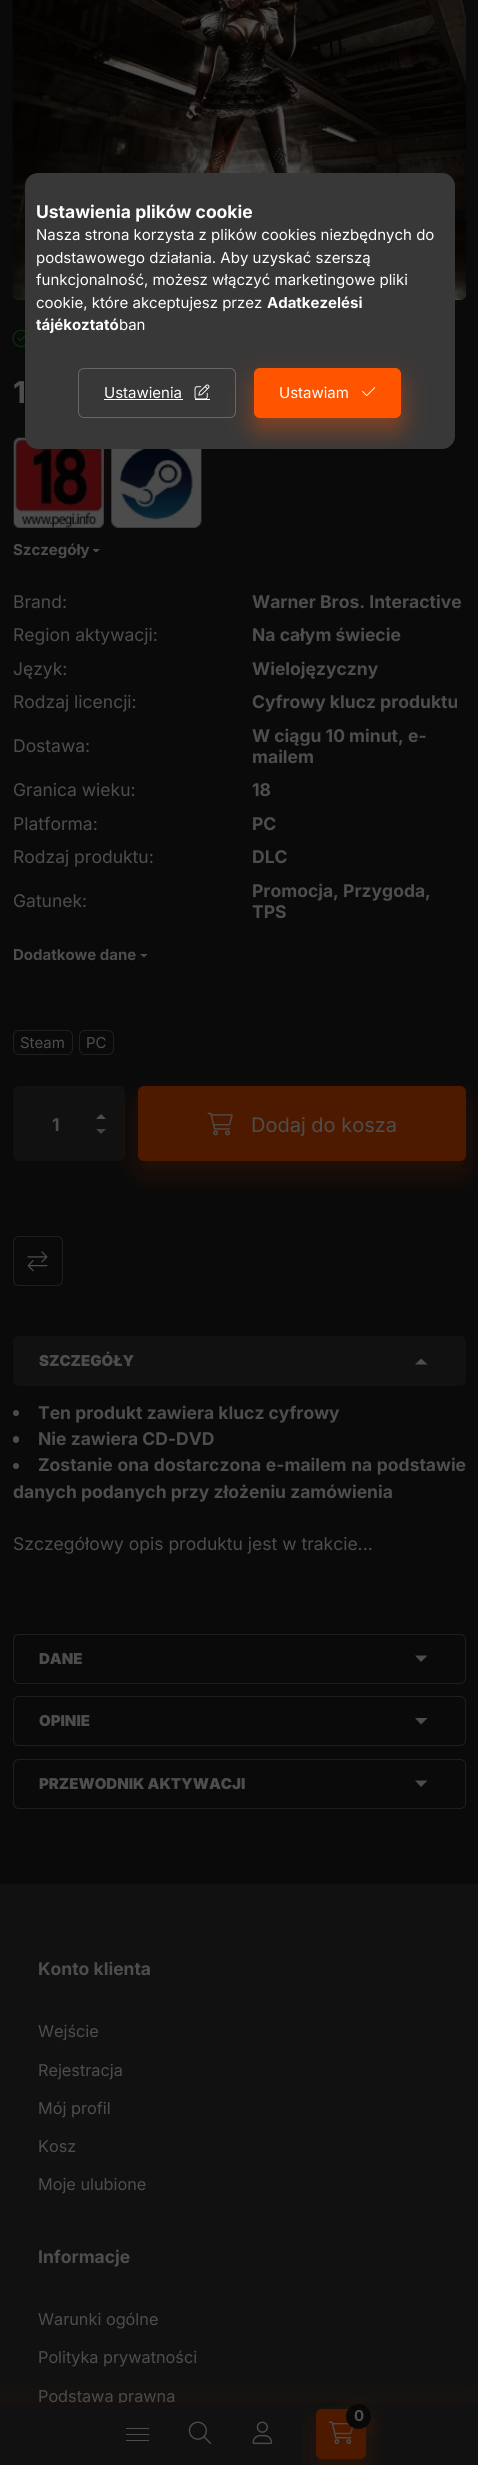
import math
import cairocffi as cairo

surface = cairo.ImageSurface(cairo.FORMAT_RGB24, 478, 2465)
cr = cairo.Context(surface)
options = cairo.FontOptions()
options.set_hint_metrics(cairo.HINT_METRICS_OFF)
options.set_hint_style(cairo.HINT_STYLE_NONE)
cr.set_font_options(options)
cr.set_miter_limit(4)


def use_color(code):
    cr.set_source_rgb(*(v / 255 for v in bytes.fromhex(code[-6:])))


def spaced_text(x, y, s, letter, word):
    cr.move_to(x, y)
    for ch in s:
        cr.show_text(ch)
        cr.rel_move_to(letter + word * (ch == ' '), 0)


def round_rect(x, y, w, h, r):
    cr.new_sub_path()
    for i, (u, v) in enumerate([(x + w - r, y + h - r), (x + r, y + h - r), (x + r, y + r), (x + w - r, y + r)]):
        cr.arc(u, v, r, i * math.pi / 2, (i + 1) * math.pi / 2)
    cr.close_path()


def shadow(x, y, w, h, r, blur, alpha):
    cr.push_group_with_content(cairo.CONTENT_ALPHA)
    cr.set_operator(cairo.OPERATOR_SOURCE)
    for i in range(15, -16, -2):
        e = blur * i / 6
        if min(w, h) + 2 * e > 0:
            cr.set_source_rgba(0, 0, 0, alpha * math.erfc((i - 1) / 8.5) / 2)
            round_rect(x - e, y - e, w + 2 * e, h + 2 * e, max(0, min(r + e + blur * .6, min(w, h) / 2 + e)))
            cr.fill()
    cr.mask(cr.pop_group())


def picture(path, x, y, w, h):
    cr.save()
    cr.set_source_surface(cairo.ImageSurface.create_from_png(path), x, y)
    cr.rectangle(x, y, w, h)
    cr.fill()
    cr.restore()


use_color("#0a0a0a")
cr.paint()
picture("img3.png", 12, 0, 455, 301)
picture("img5.png", 13, 437, 91, 91)
use_color("#383838")
round_rect(25, 173, 430, 276, 13)
cr.fill()
cr.select_font_face("Inter", cairo.FONT_SLANT_NORMAL, cairo.FONT_WEIGHT_BOLD)
cr.set_font_size(17.5)
use_color("#ffffff")
cr.move_to(36, 218)
cr.show_text("Ustawienia plików cookie")
cr.select_font_face("Inter")
cr.set_font_size(15)
cr.move_to(36, 240)
cr.show_text("Nasza strona korzysta z plików cookies niezbędnych do")
cr.move_to(36, 263)
cr.show_text("podstawowego działania. Aby uzyskać szerszą")
cr.move_to(36, 285)
cr.show_text("funkcjonalność, możesz włączyć marketingowe pliki")
cr.move_to(36, 308)
cr.show_text("cookie, które akceptujesz przez")
cr.select_font_face("Inter", cairo.FONT_SLANT_NORMAL, cairo.FONT_WEIGHT_BOLD)
cr.move_to(267, 308)
cr.show_text("Adatkezelési")
cr.move_to(36, 330)
cr.show_text("tájékoztató")
cr.select_font_face("Inter")
cr.move_to(119, 330)
cr.show_text("ban")
round_rect(78.5, 368.5, 157, 49, 5.5)
use_color("#666666")
cr.set_line_width(1)
cr.stroke()
use_color("#ffffff")
cr.move_to(104, 398)
cr.show_text("Ustawienia")
cr.rectangle(104, 399, 79, 1)
cr.fill()
picture("img1.png", 194, 384, 16, 15)
cr.rectangle(195, 399, 15, 1)
cr.fill()
cr.save()
round_rect(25, 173, 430, 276, 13)
cr.clip()
use_color("#ff5500")
shadow(254, 380, 147, 50, 6, 12.5, 0.4)
cr.restore()
use_color("#ff5500")
round_rect(254.5, 368.5, 146, 49, 5.5)
cr.fill_preserve()
cr.stroke()
use_color("#ffffff")
cr.move_to(279, 398)
cr.show_text("Ustawiam")
picture("img2.png", 362, 387, 14, 9)
picture("img4.png", 12, 329, 13, 19)
cr.select_font_face("Inter", cairo.FONT_SLANT_NORMAL, cairo.FONT_WEIGHT_BOLD)
cr.set_font_size(30)
use_color("#4d4d4d")
cr.move_to(13, 403)
cr.show_text("1")
picture("img6.png", 111, 449, 91, 79)
cr.set_font_size(15)
cr.move_to(13, 555)
cr.show_text("Szczegóły")
cr.new_path()
cr.move_to(92.5, 549)
cr.line_to(100, 549)
cr.line_to(96, 552.5)
cr.close_path()
cr.fill()
cr.select_font_face("Inter")
cr.set_font_size(17.5)
cr.move_to(13, 608)
cr.show_text("Brand:")
cr.select_font_face("Inter", cairo.FONT_SLANT_NORMAL, cairo.FONT_WEIGHT_BOLD)
cr.move_to(252, 608)
cr.show_text("Warner Bros. Interactive")
cr.select_font_face("Inter")
cr.move_to(13, 641)
cr.show_text("Region aktywacji:")
cr.select_font_face("Inter", cairo.FONT_SLANT_NORMAL, cairo.FONT_WEIGHT_BOLD)
cr.move_to(252, 641)
cr.show_text("Na całym świecie")
cr.select_font_face("Inter")
cr.move_to(13, 675)
cr.show_text("Język:")
cr.select_font_face("Inter", cairo.FONT_SLANT_NORMAL, cairo.FONT_WEIGHT_BOLD)
cr.move_to(252, 675)
cr.show_text("Wielojęzyczny")
cr.select_font_face("Inter")
cr.move_to(13, 708)
cr.show_text("Rodzaj licencji:")
cr.select_font_face("Inter", cairo.FONT_SLANT_NORMAL, cairo.FONT_WEIGHT_BOLD)
cr.move_to(252, 708)
cr.show_text("Cyfrowy klucz produktu")
cr.select_font_face("Inter")
cr.move_to(13, 752)
cr.show_text("Dostawa:")
cr.select_font_face("Inter", cairo.FONT_SLANT_NORMAL, cairo.FONT_WEIGHT_BOLD)
cr.move_to(252, 742)
cr.show_text("W ciągu 10 minut, e-")
cr.move_to(252, 763)
cr.show_text("mailem")
cr.select_font_face("Inter")
cr.move_to(13, 796)
cr.show_text("Granica wieku:")
cr.select_font_face("Inter", cairo.FONT_SLANT_NORMAL, cairo.FONT_WEIGHT_BOLD)
cr.move_to(252, 796)
cr.show_text("18")
cr.select_font_face("Inter")
cr.move_to(13, 830)
cr.show_text("Platforma:")
cr.select_font_face("Inter", cairo.FONT_SLANT_NORMAL, cairo.FONT_WEIGHT_BOLD)
cr.move_to(252, 830)
cr.show_text("PC")
cr.select_font_face("Inter")
cr.move_to(13, 863)
cr.show_text("Rodzaj produktu:")
cr.select_font_face("Inter", cairo.FONT_SLANT_NORMAL, cairo.FONT_WEIGHT_BOLD)
cr.move_to(252, 863)
cr.show_text("DLC")
cr.select_font_face("Inter")
cr.move_to(13, 907)
cr.show_text("Gatunek:")
cr.select_font_face("Inter", cairo.FONT_SLANT_NORMAL, cairo.FONT_WEIGHT_BOLD)
cr.move_to(252, 897)
cr.show_text("Promocja, Przygoda,")
cr.move_to(252, 918)
cr.show_text("TPS")
cr.set_font_size(15)
cr.move_to(13, 960)
cr.show_text("Dodatkowe dane")
cr.new_path()
cr.move_to(140, 954)
cr.line_to(147.5, 954)
cr.line_to(144, 957.5)
cr.close_path()
cr.fill()
round_rect(13.5, 1030.5, 59, 24, 5.5)
use_color("#1f1f1f")
cr.stroke()
cr.select_font_face("Inter")
use_color("#4d4d4d")
cr.move_to(20, 1048)
cr.show_text("Steam")
round_rect(79.5, 1030.5, 34, 24, 5.5)
use_color("#1f1f1f")
cr.stroke()
use_color("#4d4d4d")
cr.move_to(86, 1048)
cr.show_text("PC")
use_color("#111111")
round_rect(13, 1086, 112, 75, 6)
cr.fill()
cr.select_font_face("Inter", cairo.FONT_SLANT_NORMAL, cairo.FONT_WEIGHT_BOLD)
cr.set_font_size(17.5)
use_color("#4d4d4d")
cr.move_to(52, 1131)
cr.show_text("1")
cr.new_path()
cr.move_to(106, 1119)
cr.line_to(96, 1119)
cr.line_to(101, 1114)
cr.close_path()
cr.fill()
use_color("#424242")
cr.new_path()
cr.move_to(96, 1129)
cr.line_to(106, 1129)
cr.line_to(101, 1134)
cr.close_path()
cr.fill()
use_color("#4d1a00")
shadow(138, 1099, 328, 75, 6, 12.5, 0.4)
use_color("#4d1a00")
round_rect(138, 1086, 328, 75, 6)
cr.fill()
picture("img7.png", 207, 1112, 26, 24)
cr.select_font_face("Inter")
cr.set_font_size(20)
use_color("#4d4d4d")
cr.move_to(251, 1132)
cr.show_text("Dodaj do kosza")
round_rect(13.5, 1236.5, 49, 49, 5.5)
use_color("#1f1f1f")
cr.stroke()
picture("img8.png", 27, 1251, 21, 21)
use_color("#111111")
round_rect(13, 1336, 453, 50, 6)
cr.fill()
cr.select_font_face("Inter Black")
cr.set_font_size(15)
use_color("#4d4d4d")
cr.move_to(39, 1366)
cr.show_text("SZCZEGÓŁY")
cr.new_path()
cr.move_to(415, 1364.5)
cr.line_to(427.5, 1364.5)
cr.line_to(421, 1358.5)
cr.close_path()
cr.fill()
cr.arc(16, 1413, 3, 0, 2 * math.pi)
cr.fill()
cr.select_font_face("Inter", cairo.FONT_SLANT_NORMAL, cairo.FONT_WEIGHT_BOLD)
cr.set_font_size(17.5)
cr.move_to(38, 1419)
cr.show_text("Ten produkt zawiera klucz cyfrowy")
round_rect(13, 1436, 6, 7, 3)
cr.fill()
cr.move_to(38, 1445)
cr.show_text("Nie zawiera CD-DVD")
cr.new_path()
cr.arc(16, 1466, 3, 0, 2 * math.pi)
cr.fill()
spaced_text(38, 1471, "Zostanie ona dostarczona e-mailem na podstawie", 0, 0.5)
cr.move_to(13, 1498)
cr.show_text("danych podanych przy złożeniu zamówienia")
cr.select_font_face("Inter")
cr.move_to(13, 1550)
cr.show_text("Szczegółowy opis produktu jest w trakcie...")
round_rect(13.5, 1634.5, 452, 49, 5.5)
use_color("#1f1f1f")
cr.stroke()
cr.select_font_face("Inter Black")
cr.set_font_size(15)
use_color("#4d4d4d")
cr.move_to(39, 1664)
cr.show_text("DANE")
cr.new_path()
cr.move_to(415, 1655.5)
cr.line_to(427.5, 1655.5)
cr.line_to(421, 1662)
cr.close_path()
cr.fill()
round_rect(13.5, 1696.5, 452, 49, 5.5)
use_color("#1f1f1f")
cr.stroke()
use_color("#4d4d4d")
cr.move_to(39, 1726)
cr.show_text("OPINIE")
cr.new_path()
cr.move_to(415, 1718)
cr.line_to(427.5, 1718)
cr.line_to(421, 1724.5)
cr.close_path()
cr.fill()
round_rect(13.5, 1759.5, 452, 49, 5.5)
use_color("#1f1f1f")
cr.stroke()
use_color("#4d4d4d")
cr.move_to(39, 1789)
cr.show_text("PRZEWODNIK AKTYWACJI")
cr.new_path()
cr.move_to(415, 1780.5)
cr.line_to(427.5, 1780.5)
cr.line_to(421, 1787)
cr.close_path()
cr.fill()
use_color("#111111")
cr.rectangle(0, 1884, 478, 519)
cr.fill()
cr.select_font_face("Inter", cairo.FONT_SLANT_NORMAL, cairo.FONT_WEIGHT_BOLD)
cr.set_font_size(17.5)
use_color("#4d4d4d")
cr.move_to(38, 1975)
cr.show_text("Konto klienta")
cr.select_font_face("Inter")
cr.set_font_size(16.25)
cr.move_to(38, 2037)
cr.show_text("Wejście")
cr.move_to(38, 2076)
cr.show_text("Rejestracja")
cr.move_to(38, 2114)
cr.show_text("Mój profil")
cr.move_to(38, 2152)
cr.show_text("Kosz")
cr.move_to(38, 2190)
cr.show_text("Moje ulubione")
cr.select_font_face("Inter", cairo.FONT_SLANT_NORMAL, cairo.FONT_WEIGHT_BOLD)
cr.set_font_size(17.5)
cr.move_to(38, 2263)
cr.show_text("Informacje")
cr.select_font_face("Inter")
cr.set_font_size(16.25)
cr.move_to(38, 2325)
cr.show_text("Warunki ogólne")
cr.move_to(38, 2363)
cr.show_text("Polityka prywatności")
cr.move_to(38, 2402)
cr.show_text("Podstawa prawna")
use_color("#4d1a00")
shadow(0, 2403, 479, 62, 0, 19, 0.2)
use_color("#111111")
cr.rectangle(0, 2403, 478, 62)
cr.fill()
use_color("#4d1a00")
shadow(316, 2421, 50, 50, 6, 12.5, 0.4)
use_color("#4d1a00")
round_rect(316, 2409, 50, 50, 6)
cr.fill()
picture("img9.png", 328, 2421, 26, 23)
use_color("#4d1a00")
shadow(346, 2410, 25, 25, 12.5, 6, 0.4)
use_color("#080808")
cr.arc(358.5, 2416.5, 12.5, 0, 2 * math.pi)
cr.fill()
cr.select_font_face("Inter", cairo.FONT_SLANT_NORMAL, cairo.FONT_WEIGHT_BOLD)
cr.set_font_size(15)
use_color("#4d4d4d")
cr.move_to(354, 2421)
cr.show_text("0")
cr.rectangle(126, 2428, 23, 1)
cr.fill()
cr.rectangle(126, 2434, 23, 1)
cr.fill()
cr.rectangle(126, 2440, 23, 1)
cr.fill()
picture("img10.png", 188, 2421, 24, 23)
picture("img11.png", 252, 2421, 21, 24)
surface.write_to_png("result.png")
